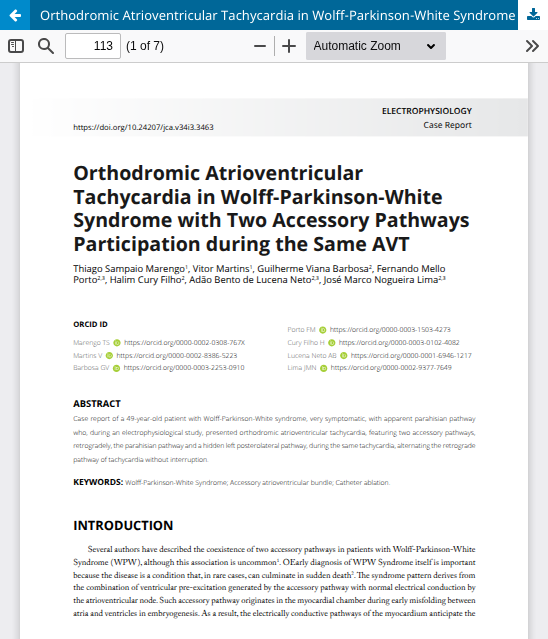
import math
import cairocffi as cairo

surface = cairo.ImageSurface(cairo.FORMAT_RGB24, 548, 639)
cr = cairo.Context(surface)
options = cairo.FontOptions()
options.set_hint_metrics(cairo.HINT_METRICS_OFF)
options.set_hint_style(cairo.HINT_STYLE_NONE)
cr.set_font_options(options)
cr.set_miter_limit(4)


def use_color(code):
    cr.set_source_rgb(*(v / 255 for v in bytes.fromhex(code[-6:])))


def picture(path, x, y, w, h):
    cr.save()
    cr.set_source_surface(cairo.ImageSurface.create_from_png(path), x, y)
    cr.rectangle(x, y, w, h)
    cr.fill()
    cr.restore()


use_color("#ffffff")
cr.paint()
use_color("#006798")
cr.rectangle(30, 0, 488, 30)
cr.fill()
use_color("#008acb")
cr.rectangle(0, 0, 30, 30)
cr.fill()
picture("img1.png", 9, 9, 12, 13)
cr.select_font_face("Noto Sans")
cr.set_font_size(13)
use_color("#ffffff")
cr.move_to(40, 20)
cr.show_text("Orthodromic Atrioventricular Tachycardia in Wolff-Parkinson-White Syndrome")
picture("img2.png", 527, 8, 13, 12)
picture("img3.png", 0, 30, 548, 609)
surface.write_to_png("result.png")
